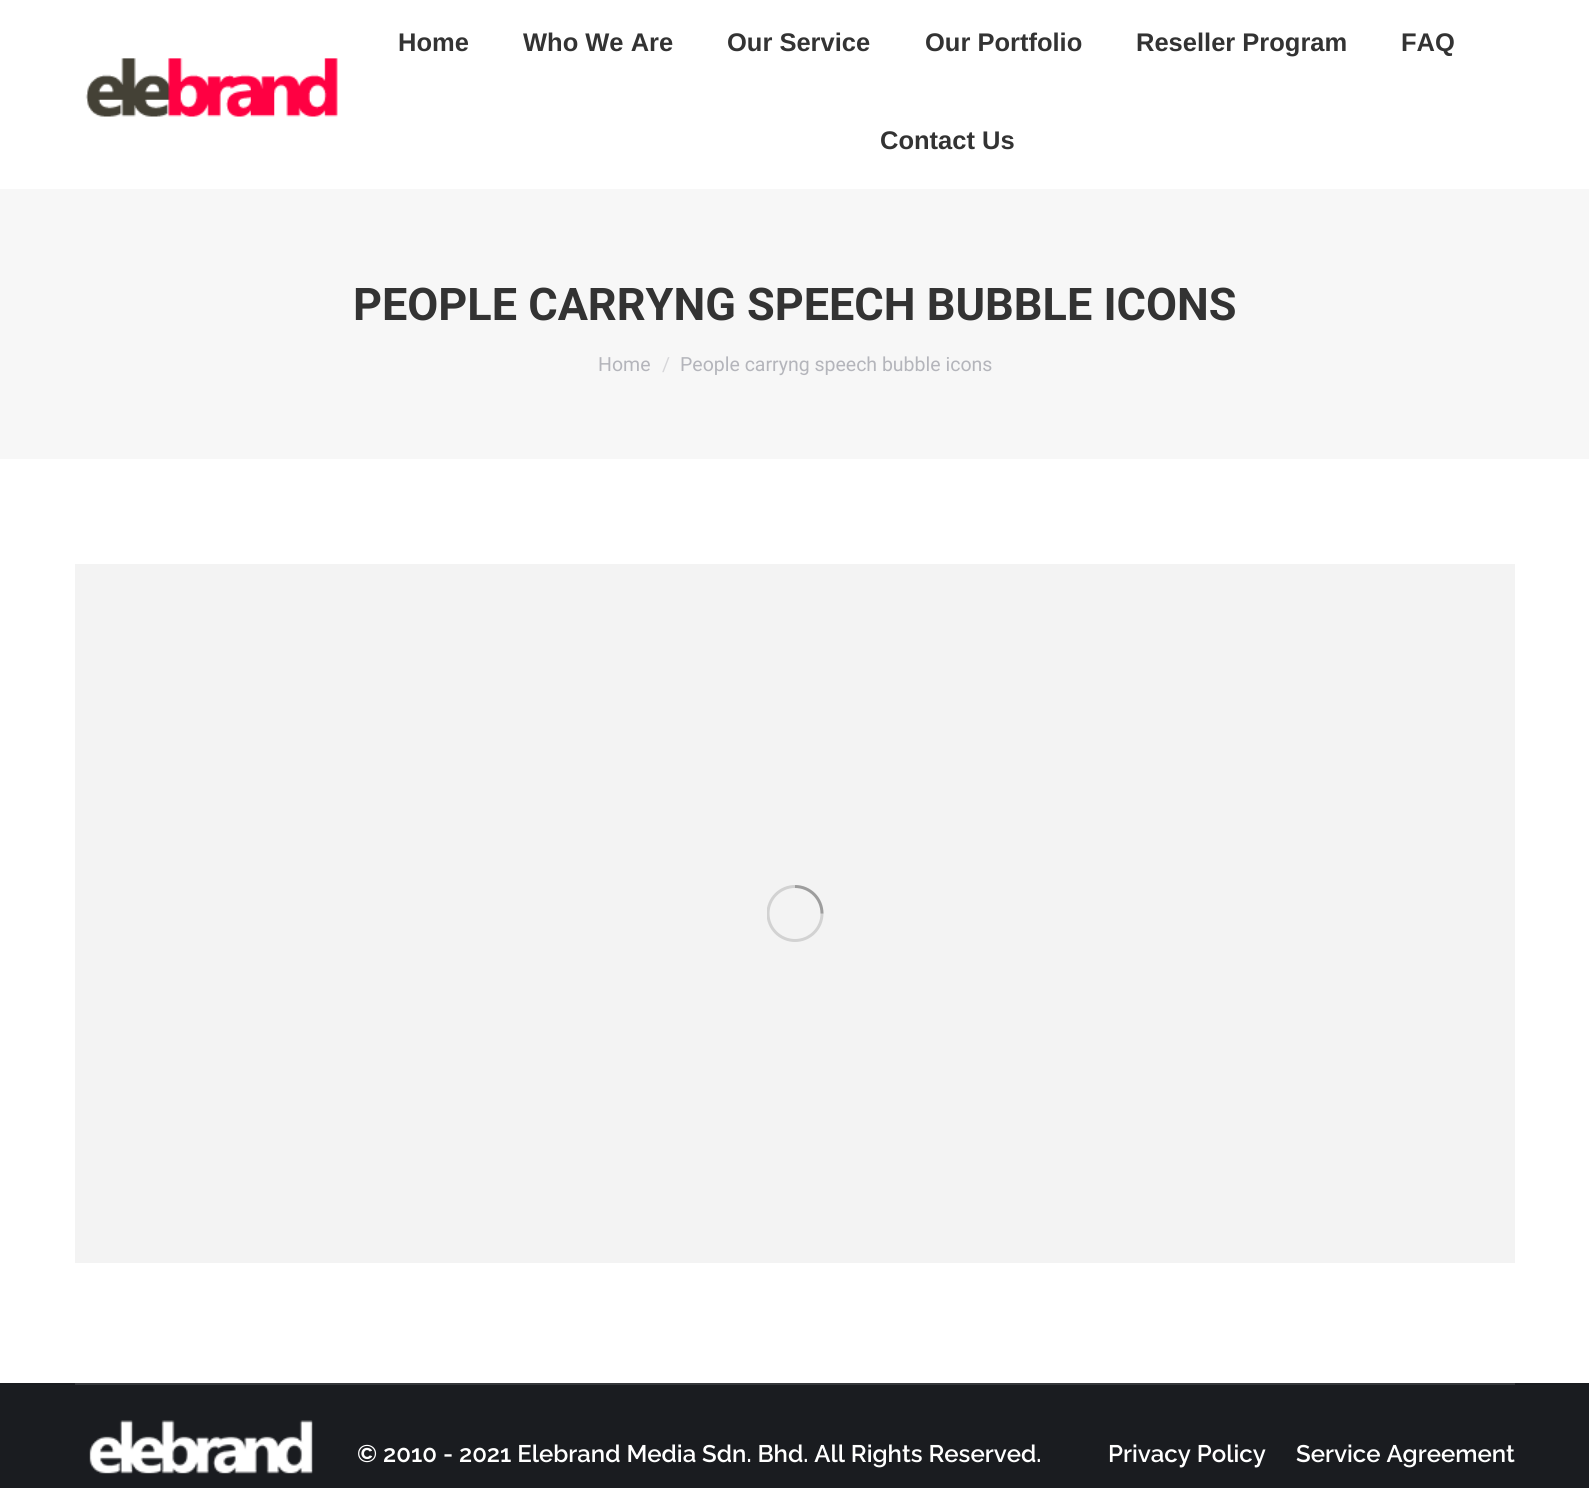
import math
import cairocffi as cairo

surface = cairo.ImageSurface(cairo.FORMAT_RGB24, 1589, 1488)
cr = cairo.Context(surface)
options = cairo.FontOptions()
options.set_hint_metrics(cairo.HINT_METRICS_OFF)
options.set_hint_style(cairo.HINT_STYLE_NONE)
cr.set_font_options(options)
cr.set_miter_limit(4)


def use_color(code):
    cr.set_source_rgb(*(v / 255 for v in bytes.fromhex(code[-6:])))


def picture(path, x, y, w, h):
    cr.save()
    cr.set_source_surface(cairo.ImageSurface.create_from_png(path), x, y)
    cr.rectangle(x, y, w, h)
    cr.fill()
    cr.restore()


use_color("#ffffff")
cr.paint()
picture("img1.png", 85, 58, 253, 59)
cr.select_font_face("Liberation Sans", cairo.FONT_SLANT_NORMAL, cairo.FONT_WEIGHT_BOLD)
cr.set_font_size(25.5)
use_color("#333333")
cr.move_to(398, 51)
cr.show_text("Home")
cr.move_to(523, 51)
cr.show_text("Who We Are")
cr.move_to(727, 51)
cr.show_text("Our Service")
cr.move_to(925, 51)
cr.show_text("Our Portfolio")
cr.move_to(1136, 51)
cr.show_text("Reseller Program")
cr.move_to(1401, 51)
cr.show_text("FAQ")
cr.move_to(880, 149)
cr.show_text("Contact Us")
use_color("#f7f7f7")
cr.rectangle(0, 189, 1589, 270)
cr.fill()
cr.select_font_face("Roboto", cairo.FONT_SLANT_NORMAL, cairo.FONT_WEIGHT_BOLD)
cr.set_font_size(45)
use_color("#333333")
cr.move_to(353, 320)
cr.show_text("PEOPLE CARRYNG SPEECH BUBBLE ICONS")
cr.select_font_face("Roboto")
cr.set_font_size(19.5)
use_color("#b4b5bb")
cr.move_to(598, 371)
cr.show_text("Home")
use_color("#d6d6d9")
cr.move_to(662, 371)
cr.show_text("/")
use_color("#b4b5bb")
cr.move_to(680, 371)
cr.show_text("People carryng speech bubble icons")
use_color("#f3f3f3")
cr.rectangle(75, 564, 1440, 699)
cr.fill()
cr.save()
cr.rectangle(767, 885, 57, 57)
cr.clip()
cr.arc(795, 913.5, 27, 0, 2 * math.pi)
use_color("#d2d2d2")
cr.set_line_width(3)
cr.stroke()
cr.restore()
cr.new_path()
cr.move_to(822, 913.5)
cr.curve_to(822, 898.5, 810, 886.5, 795, 886.5)
cr.set_source_rgba(0, 0, 0, 0.25)
cr.set_line_width(3)
cr.stroke()
use_color("#1a1c20")
cr.rectangle(0, 1383, 1589, 105)
cr.fill()
use_color("#35373b")
cr.rectangle(75, 1383, 1440, 2)
cr.fill()
picture("img2.png", 89, 1420, 224, 54)
cr.select_font_face("Raleway SemiBold")
cr.set_font_size(24)
use_color("#ffffff")
cr.move_to(357, 1462)
cr.show_text("© 2010 - 2021 Elebrand Media Sdn. Bhd. All Rights Reserved.")
cr.move_to(1108, 1462)
cr.show_text("Privacy Policy")
cr.move_to(1296, 1462)
cr.show_text("Service Agreement")
surface.write_to_png("result.png")
